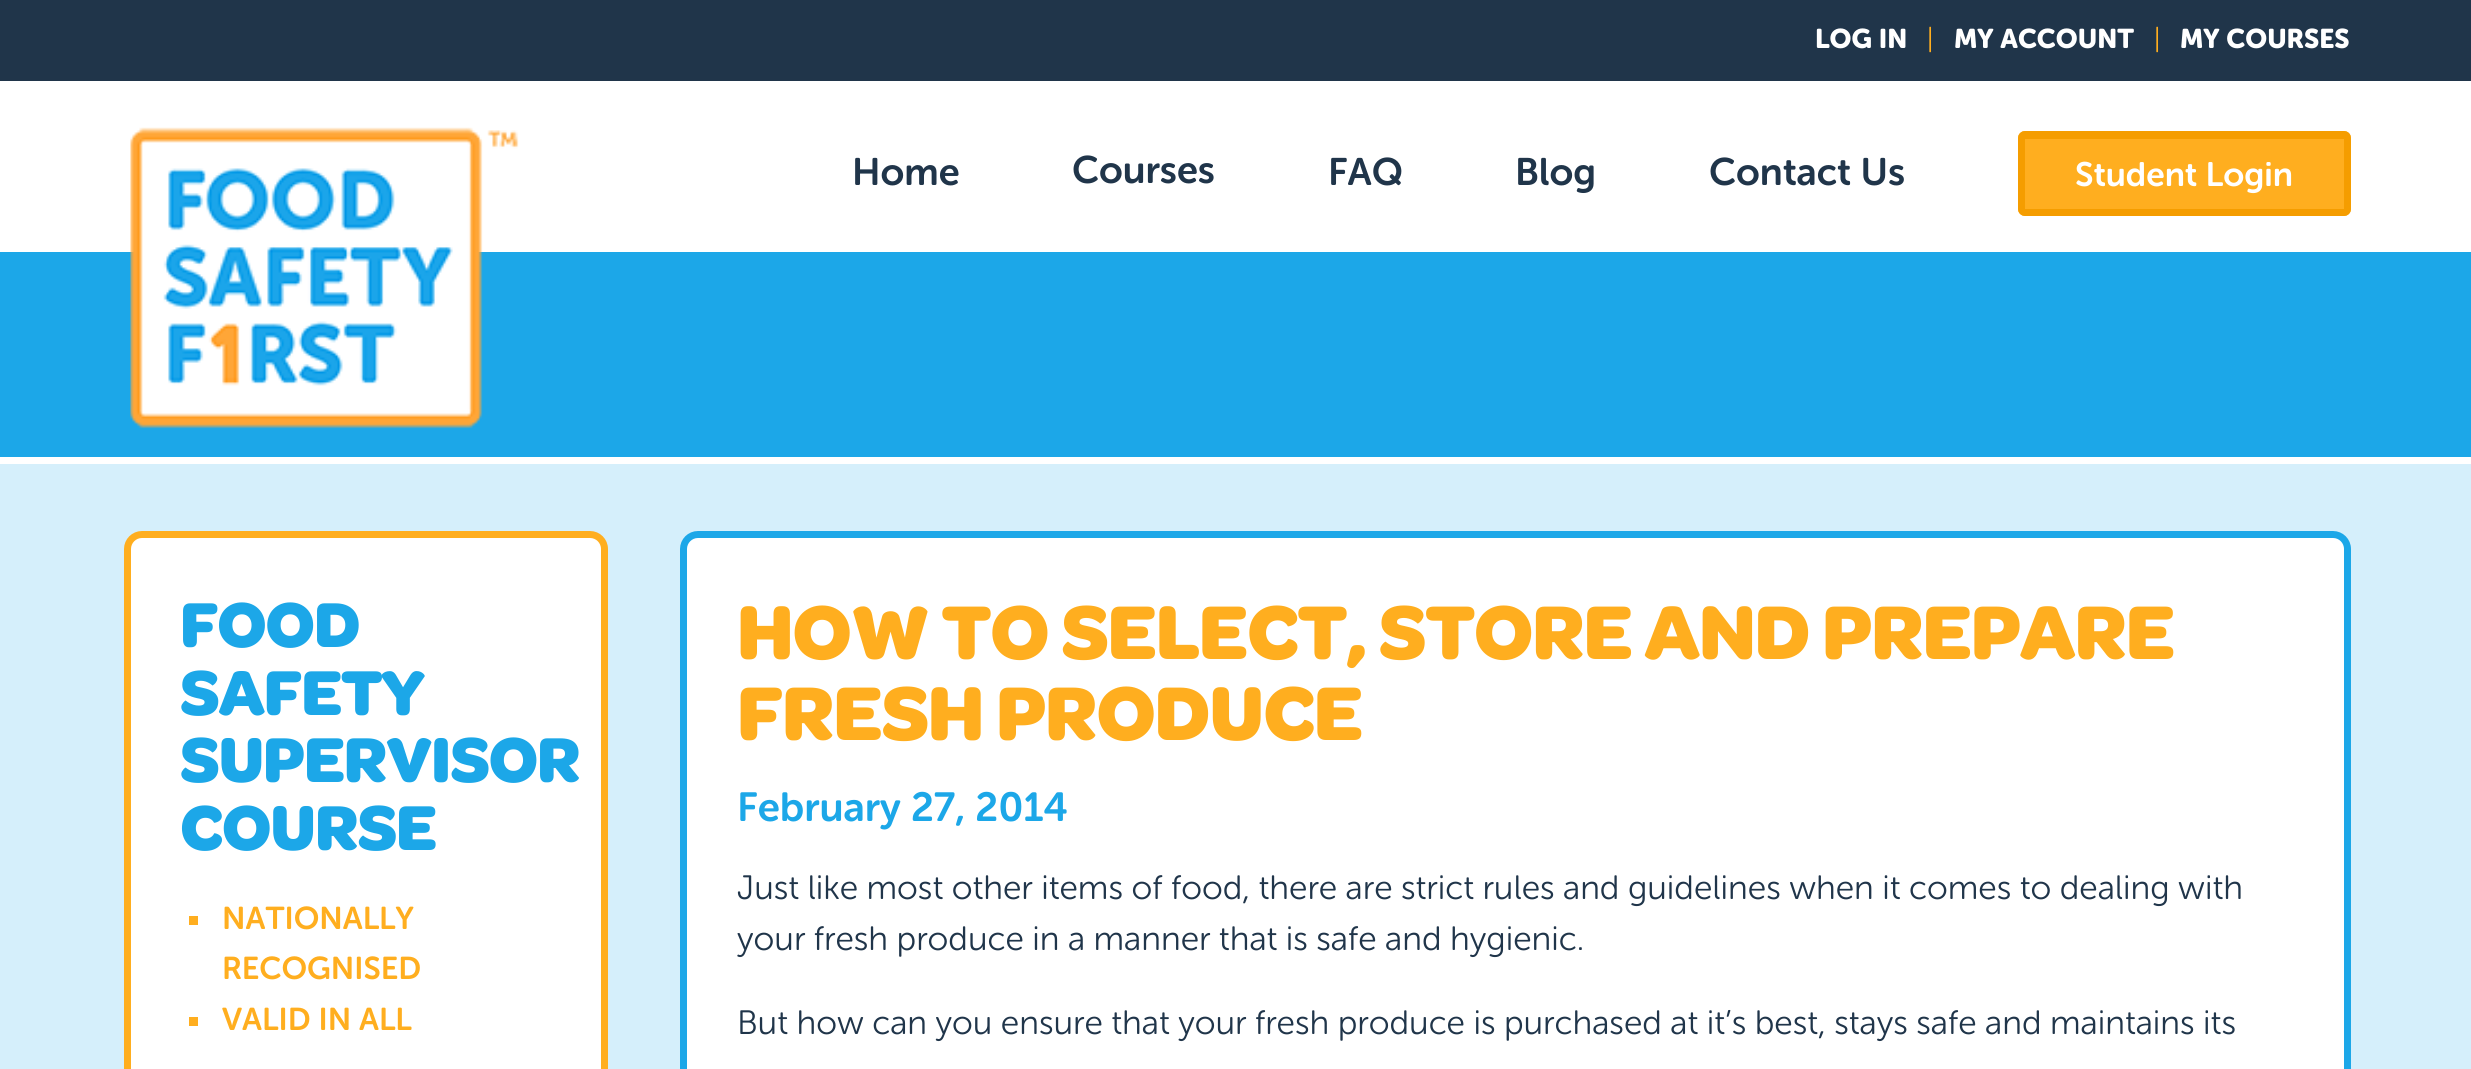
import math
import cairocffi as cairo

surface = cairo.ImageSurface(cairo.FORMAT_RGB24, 2471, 1069)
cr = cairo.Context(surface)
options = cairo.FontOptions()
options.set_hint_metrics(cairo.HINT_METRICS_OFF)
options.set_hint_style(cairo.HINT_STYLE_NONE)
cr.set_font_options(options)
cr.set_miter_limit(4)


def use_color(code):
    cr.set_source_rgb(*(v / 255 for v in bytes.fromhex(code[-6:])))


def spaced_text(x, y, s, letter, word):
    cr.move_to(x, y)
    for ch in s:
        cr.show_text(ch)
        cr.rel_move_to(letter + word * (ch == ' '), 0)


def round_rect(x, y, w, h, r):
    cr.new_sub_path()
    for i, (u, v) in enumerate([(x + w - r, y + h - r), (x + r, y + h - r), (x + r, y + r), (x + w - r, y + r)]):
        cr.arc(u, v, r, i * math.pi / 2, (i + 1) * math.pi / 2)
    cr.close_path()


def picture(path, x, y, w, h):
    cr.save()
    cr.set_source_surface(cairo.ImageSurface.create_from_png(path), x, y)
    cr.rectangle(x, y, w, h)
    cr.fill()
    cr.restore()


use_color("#ffffff")
cr.paint()
use_color("#20354a")
cr.rectangle(0, 0, 2471, 81)
cr.fill()
cr.select_font_face("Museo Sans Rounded", cairo.FONT_SLANT_NORMAL, cairo.FONT_WEIGHT_BOLD)
cr.set_font_size(27)
use_color("#ffffff")
cr.move_to(1815, 48)
cr.show_text("LOG IN")
cr.select_font_face("Museo Sans Rounded Light")
use_color("#ffae1f")
cr.move_to(1927, 48)
cr.show_text("|")
cr.select_font_face("Museo Sans Rounded", cairo.FONT_SLANT_NORMAL, cairo.FONT_WEIGHT_BOLD)
use_color("#ffffff")
cr.move_to(1954, 48)
cr.show_text("MY ACCOUNT")
cr.select_font_face("Museo Sans Rounded Light")
use_color("#ffae1f")
cr.move_to(2154, 48)
cr.show_text("|")
cr.select_font_face("Museo Sans Rounded", cairo.FONT_SLANT_NORMAL, cairo.FONT_WEIGHT_BOLD)
use_color("#ffffff")
cr.move_to(2180, 48)
cr.show_text("MY COURSES")
use_color("#1ca7e8")
cr.rectangle(0, 252, 2471, 205)
cr.fill()
picture("img1.png", 130, 127, 389, 302)
cr.select_font_face("Museo Sans Rounded SemiBold")
cr.set_font_size(38.25)
use_color("#20354a")
cr.move_to(852, 185)
cr.show_text("Home")
cr.move_to(1072, 183)
cr.show_text("Courses")
cr.move_to(1328, 185)
cr.show_text("FAQ")
cr.move_to(1515, 185)
cr.show_text("Blog")
cr.move_to(1709, 185)
cr.show_text("Contact Us")
use_color("#ffae1f")
round_rect(2018, 131, 333, 85, 7)
cr.fill()
use_color("#f59d00")
cr.rectangle(2025, 138, 320, 1)
cr.fill()
round_rect(2021.5, 134.5, 326, 78, 3.5)
cr.set_line_width(7)
cr.stroke()
cr.set_font_size(33.75)
use_color("#ffffff")
cr.move_to(2075, 186)
cr.show_text("Student Login")
use_color("#d5effb")
cr.rectangle(0, 464, 2471, 605)
cr.fill()
use_color("#ffffff")
round_rect(127.5, 534.5, 477, 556, 14.5)
cr.fill_preserve()
use_color("#ffae1f")
cr.stroke()
cr.select_font_face("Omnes", cairo.FONT_SLANT_NORMAL, cairo.FONT_WEIGHT_BOLD)
cr.set_font_size(67.5)
use_color("#1ca7e8")
spaced_text(180, 647, "FOOD", -1.1, 0)
spaced_text(180, 715, "SAFETY", -1.1, 0)
spaced_text(180, 782, "SUPERVISOR", -1.1, 0)
spaced_text(180, 850, "COURSE", -1.1, 0)
use_color("#ffae1f")
cr.rectangle(189, 916, 9, 9)
cr.fill()
cr.select_font_face("Museo Sans Rounded SemiBold")
cr.set_font_size(31.5)
cr.move_to(222, 929)
cr.show_text("NATIONALLY")
cr.move_to(222, 979)
cr.show_text("RECOGNISED")
cr.rectangle(189, 1017, 9, 9)
cr.fill()
cr.move_to(222, 1030)
cr.show_text("VALID IN ALL")
use_color("#ffffff")
round_rect(683.5, 534.5, 1664, 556, 14.5)
cr.fill_preserve()
use_color("#1ca7e8")
cr.stroke()
cr.select_font_face("Omnes", cairo.FONT_SLANT_NORMAL, cairo.FONT_WEIGHT_BOLD)
cr.set_font_size(81)
use_color("#ffae1f")
spaced_text(737, 659, "HOW TO SELECT, STORE AND PREPARE", -1.1, 0)
spaced_text(737, 740, "FRESH PRODUCE", -1.1, 0)
cr.select_font_face("Museo Sans Rounded SemiBold")
cr.set_font_size(40.5)
use_color("#1ca7e8")
cr.move_to(737, 821)
cr.show_text("February 27, 2014")
cr.select_font_face("Museo Sans Rounded Light")
cr.set_font_size(33.75)
use_color("#20354a")
cr.move_to(737, 899)
cr.show_text("Just like most other items of food, there are strict rules and guidelines when it comes to dealing with")
cr.move_to(737, 950)
cr.show_text("your fresh produce in a manner that is safe and hygienic.")
cr.move_to(737, 1034)
cr.show_text("But how can you ensure that your fresh produce is purchased at it’s best, stays safe and maintains its")
surface.write_to_png("result.png")
